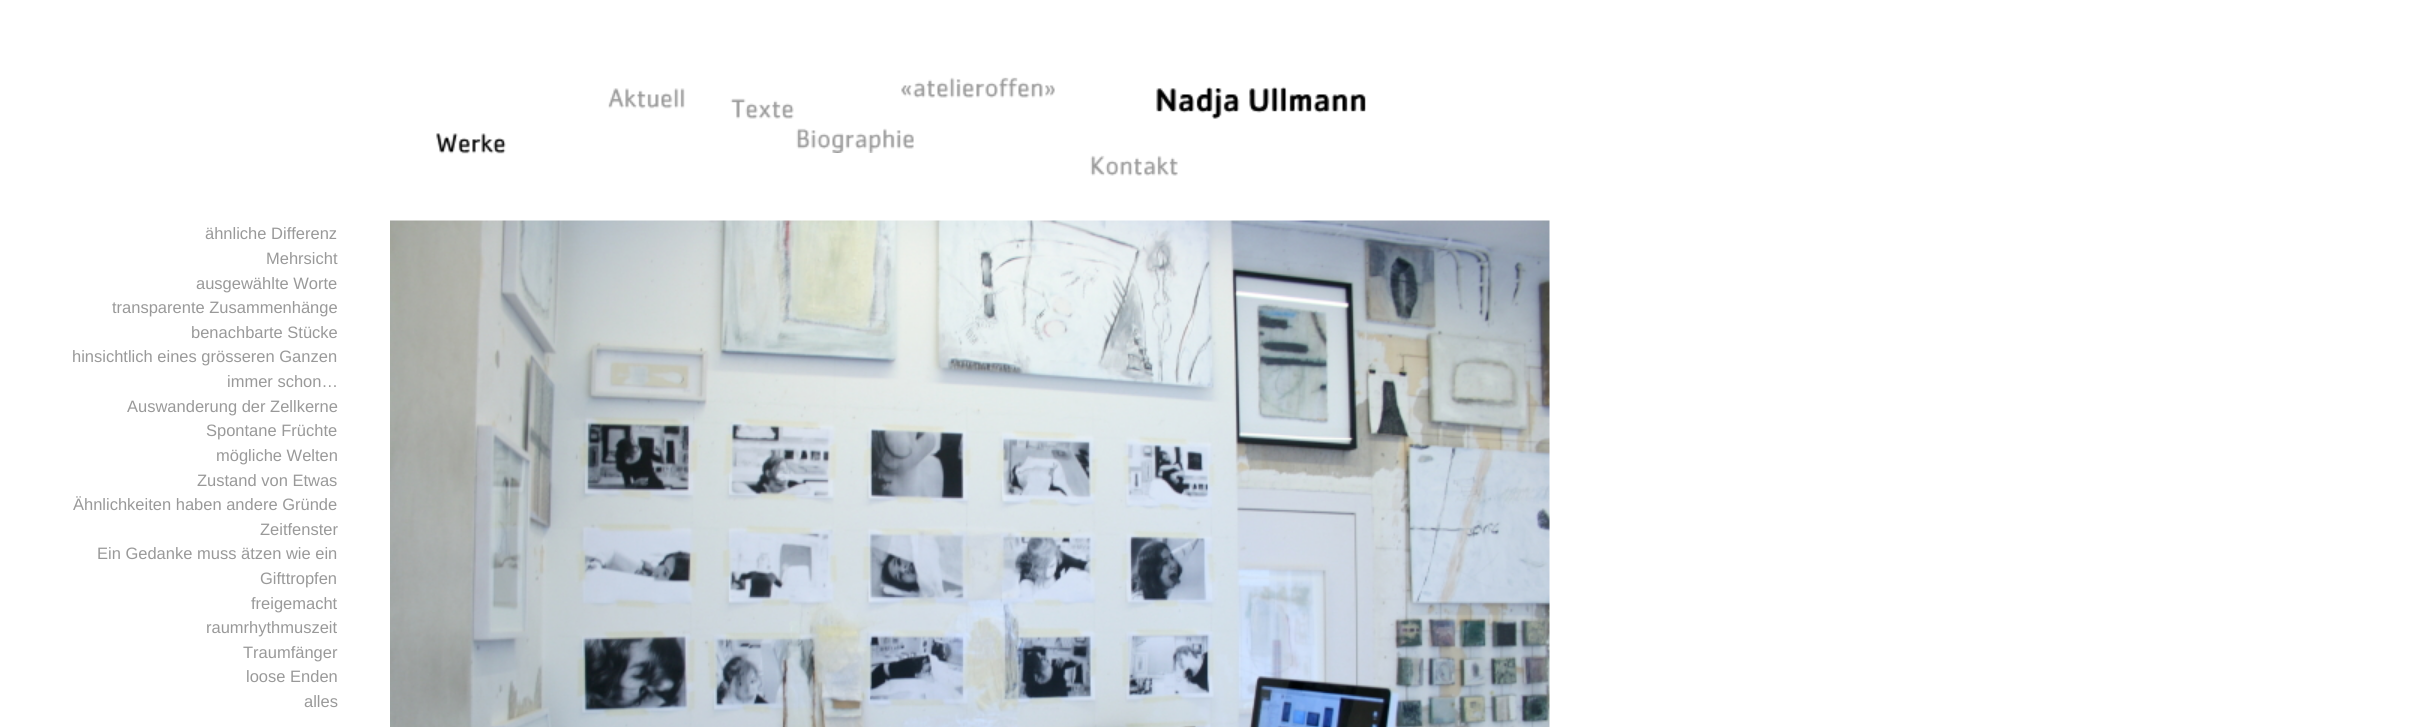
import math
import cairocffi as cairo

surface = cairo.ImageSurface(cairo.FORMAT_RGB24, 2410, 727)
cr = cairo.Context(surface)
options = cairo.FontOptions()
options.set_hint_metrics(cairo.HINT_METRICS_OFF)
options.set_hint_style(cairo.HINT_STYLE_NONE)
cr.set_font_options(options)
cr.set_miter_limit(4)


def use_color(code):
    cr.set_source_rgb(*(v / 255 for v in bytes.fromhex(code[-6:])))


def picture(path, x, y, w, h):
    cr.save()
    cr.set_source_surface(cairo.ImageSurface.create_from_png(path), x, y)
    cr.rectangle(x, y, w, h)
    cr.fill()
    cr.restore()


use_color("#ffffff")
cr.paint()
picture("img1.png", 608, 88, 77, 21)
picture("img2.png", 730, 98, 64, 21)
picture("img3.png", 901, 77, 154, 21)
picture("img4.png", 1156, 86, 84, 33)
picture("img5.png", 1249, 86, 117, 27)
picture("img6.png", 436, 133, 70, 21)
picture("img7.png", 796, 128, 118, 25)
picture("img8.png", 1090, 155, 88, 21)
cr.select_font_face("Liberation Sans")
cr.set_font_size(16.5)
use_color("#999999")
cr.move_to(205, 239)
cr.show_text("ähnliche Differenz")
cr.move_to(266, 264)
cr.show_text("Mehrsicht")
cr.move_to(196, 289)
cr.show_text("ausgewählte Worte")
cr.move_to(112, 313)
cr.show_text("transparente Zusammenhänge")
cr.move_to(191, 338)
cr.show_text("benachbarte Stücke")
cr.move_to(72, 362)
cr.show_text("hinsichtlich eines grösseren Ganzen")
cr.move_to(227, 387)
cr.show_text("immer schon…")
cr.move_to(127, 412)
cr.show_text("Auswanderung der Zellkerne")
cr.move_to(206, 436)
cr.show_text("Spontane Früchte")
cr.move_to(216, 461)
cr.show_text("mögliche Welten")
cr.move_to(197, 486)
cr.show_text("Zustand von Etwas")
cr.move_to(73, 510)
cr.show_text("Ähnlichkeiten haben andere Gründe")
cr.move_to(260, 535)
cr.show_text("Zeitfenster")
cr.move_to(97, 559)
cr.show_text("Ein Gedanke muss ätzen wie ein")
cr.move_to(260, 584)
cr.show_text("Gifttropfen")
cr.move_to(251, 609)
cr.show_text("freigemacht")
cr.move_to(206, 633)
cr.show_text("raumrhythmuszeit")
cr.move_to(243, 658)
cr.show_text("Traumfänger")
cr.move_to(246, 682)
cr.show_text("loose Enden")
cr.move_to(304, 707)
cr.show_text("alles")
picture("img9.png", 390, 220, 1160, 507)
surface.write_to_png("result.png")
